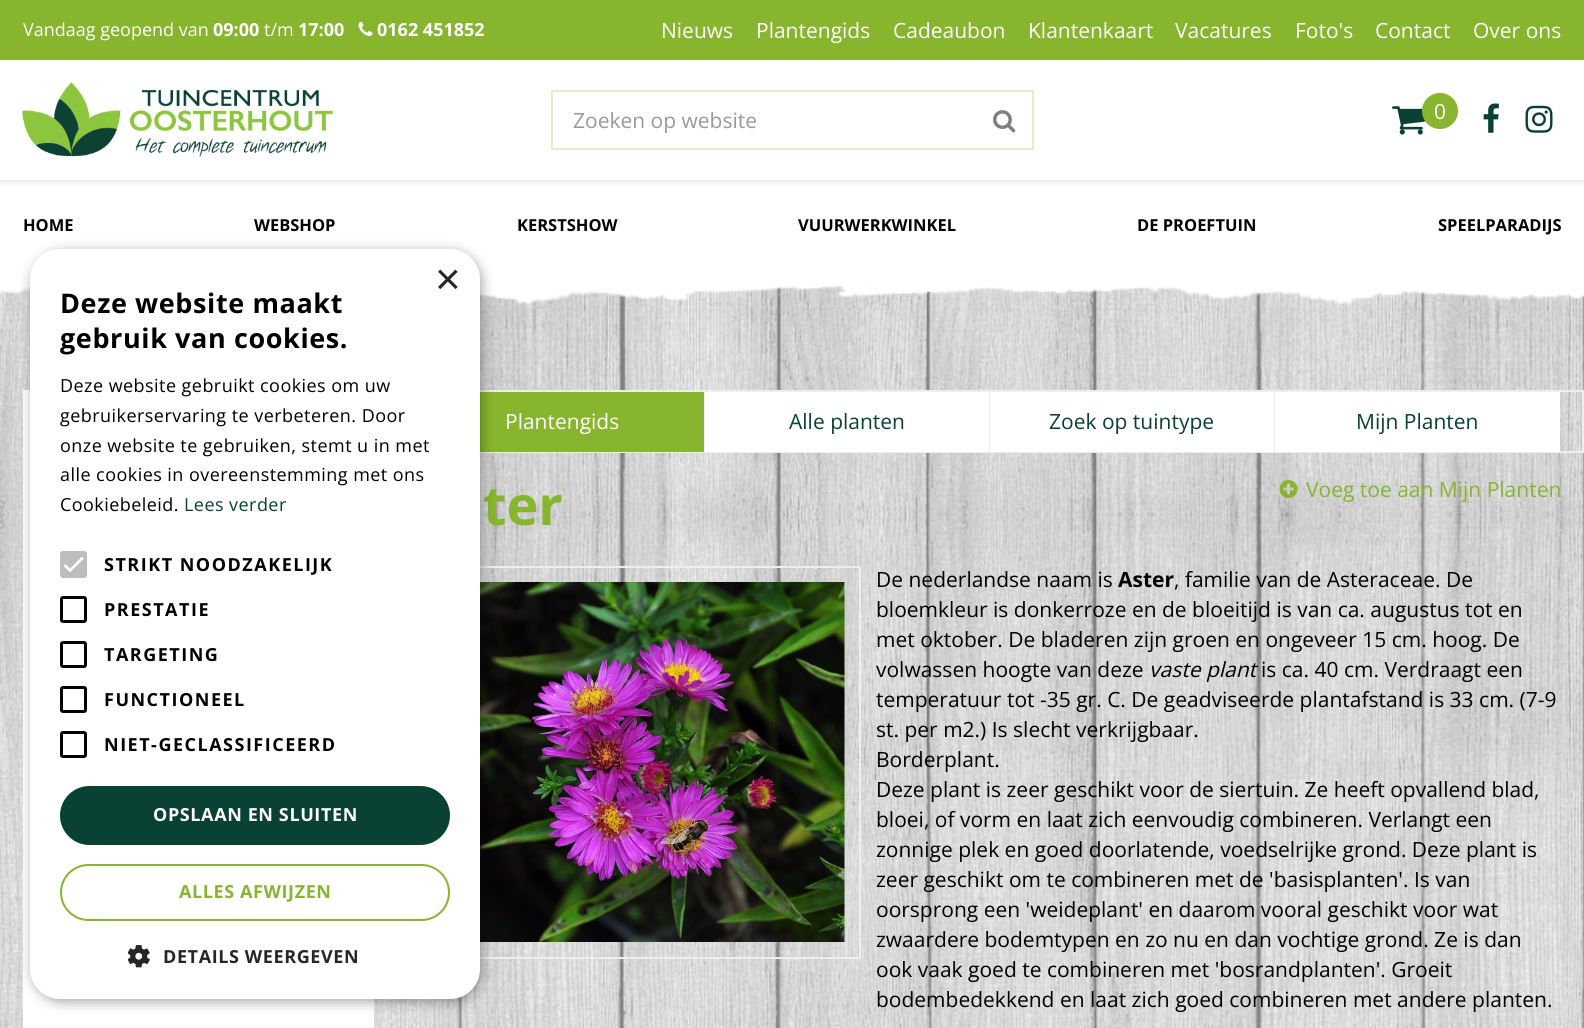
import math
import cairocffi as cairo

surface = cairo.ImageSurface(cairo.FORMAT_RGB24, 1584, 1028)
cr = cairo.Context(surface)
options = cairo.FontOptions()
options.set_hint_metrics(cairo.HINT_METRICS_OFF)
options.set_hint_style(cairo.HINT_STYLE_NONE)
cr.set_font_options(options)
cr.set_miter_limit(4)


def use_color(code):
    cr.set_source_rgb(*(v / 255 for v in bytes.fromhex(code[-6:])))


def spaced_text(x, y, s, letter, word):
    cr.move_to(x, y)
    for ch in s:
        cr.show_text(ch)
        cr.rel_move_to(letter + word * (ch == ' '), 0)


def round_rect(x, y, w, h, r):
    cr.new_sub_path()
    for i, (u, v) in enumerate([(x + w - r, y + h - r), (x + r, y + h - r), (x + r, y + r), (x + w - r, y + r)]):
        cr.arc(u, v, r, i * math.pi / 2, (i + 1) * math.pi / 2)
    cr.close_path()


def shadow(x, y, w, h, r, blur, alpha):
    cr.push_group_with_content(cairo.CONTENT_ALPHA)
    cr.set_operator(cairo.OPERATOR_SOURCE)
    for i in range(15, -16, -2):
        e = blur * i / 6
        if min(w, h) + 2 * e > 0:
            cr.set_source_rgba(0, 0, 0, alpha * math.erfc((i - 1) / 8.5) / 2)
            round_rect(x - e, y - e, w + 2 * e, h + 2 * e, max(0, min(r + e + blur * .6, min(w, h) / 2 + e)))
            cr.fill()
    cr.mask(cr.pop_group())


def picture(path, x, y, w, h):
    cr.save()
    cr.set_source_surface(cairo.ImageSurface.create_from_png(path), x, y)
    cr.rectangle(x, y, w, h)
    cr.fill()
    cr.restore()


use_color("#ffffff")
cr.paint()
picture("img1.png", 0, 284, 1584, 744)
use_color("#000000")
shadow(-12, 60, 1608, 120, 0, 4, 0.15)
use_color("#87b52d")
cr.rectangle(0, 0, 1584, 60)
cr.fill()
cr.select_font_face("Open Sans")
cr.set_font_size(18)
use_color("#ffffff")
cr.move_to(23, 36)
cr.show_text("Vandaag geopend van")
cr.select_font_face("Open Sans", cairo.FONT_SLANT_NORMAL, cairo.FONT_WEIGHT_BOLD)
cr.move_to(213, 36)
cr.show_text("09:00")
cr.select_font_face("Open Sans")
cr.move_to(264, 36)
cr.show_text("t/m")
cr.select_font_face("Open Sans", cairo.FONT_SLANT_NORMAL, cairo.FONT_WEIGHT_BOLD)
cr.move_to(298, 36)
cr.show_text("17:00")
picture("img2.png", 358, 21, 15, 15)
cr.move_to(377, 36)
cr.show_text("0162 451852")
cr.select_font_face("Open Sans")
cr.set_font_size(21)
cr.move_to(661, 38)
cr.show_text("Nieuws")
cr.move_to(756, 38)
cr.show_text("Plantengids")
cr.move_to(893, 38)
cr.show_text("Cadeaubon")
cr.move_to(1028, 38)
cr.show_text("Klantenkaart")
cr.move_to(1175, 38)
cr.show_text("Vacatures")
cr.move_to(1295, 38)
cr.show_text("Foto's")
cr.move_to(1375, 38)
cr.show_text("Contact")
cr.move_to(1473, 38)
cr.show_text("Over ons")
cr.rectangle(0, 60, 1584, 120)
cr.fill()
picture("img3.png", 22, 82, 311, 76)
cr.rectangle(552, 91, 481, 58)
use_color("#e1edcb")
cr.stroke()
use_color("#999999")
cr.move_to(573, 128)
cr.show_text("Zoeken op website")
picture("img4.png", 993, 110, 23, 23)
picture("img5.png", 1392, 106, 34, 29)
use_color("#87b52d")
cr.arc(1440, 111, 18, 0, 2 * math.pi)
cr.fill()
use_color("#ffffff")
cr.move_to(1434, 119)
cr.show_text("0")
picture("img6.png", 1483, 103, 16, 30)
picture("img7.png", 1525, 105, 28, 28)
cr.select_font_face("Open Sans", cairo.FONT_SLANT_NORMAL, cairo.FONT_WEIGHT_BOLD)
cr.set_font_size(16.5)
use_color("#000000")
cr.move_to(23, 231)
cr.show_text("HOME")
cr.move_to(254, 231)
cr.show_text("WEBSHOP")
cr.move_to(517, 231)
cr.show_text("KERSTSHOW")
cr.move_to(798, 231)
cr.show_text("VUURWERKWINKEL")
cr.move_to(1137, 231)
cr.show_text("DE PROEFTUIN")
cr.move_to(1438, 231)
cr.show_text("SPEELPARADIJS")
picture("img8.png", 0, 270, 1584, 36)
cr.rectangle(397, 391, 1186, 61)
use_color("#eeeeee")
cr.stroke()
cr.rectangle(704, 392, 1, 60)
cr.fill()
use_color("#87b52d")
cr.rectangle(480, 392, 224, 60)
cr.fill()
cr.select_font_face("Open Sans")
cr.set_font_size(21)
use_color("#ffffff")
cr.move_to(505, 429)
cr.show_text("Plantengids")
use_color("#eeeeee")
cr.rectangle(989, 392, 1, 60)
cr.fill()
use_color("#ffffff")
cr.rectangle(705, 392, 284, 60)
cr.fill()
use_color("#094134")
cr.move_to(789, 429)
cr.show_text("Alle planten")
use_color("#eeeeee")
cr.rectangle(1274, 392, 1, 60)
cr.fill()
use_color("#ffffff")
cr.rectangle(990, 392, 284, 60)
cr.fill()
use_color("#094134")
cr.move_to(1049, 429)
cr.show_text("Zoek op tuintype")
use_color("#ffffff")
cr.rectangle(1275, 392, 285, 60)
cr.fill()
use_color("#094134")
cr.move_to(1356, 429)
cr.show_text("Mijn Planten")
cr.select_font_face("Open Sans", cairo.FONT_SLANT_NORMAL, cairo.FONT_WEIGHT_BOLD)
cr.set_font_size(54)
use_color("#87b52d")
cr.move_to(483, 525)
cr.show_text("ter")
picture("img9.png", 1279, 480, 19, 18)
cr.select_font_face("Open Sans")
cr.set_font_size(21)
cr.move_to(1306, 497)
cr.show_text("Voeg toe aan Mijn Planten")
cr.rectangle(420, 567, 440, 391)
use_color("#eeeeee")
cr.stroke()
picture("img10.png", 480, 582, 365, 360)
use_color("#000000")
cr.move_to(876, 587)
cr.show_text("De nederlandse naam is")
cr.select_font_face("Open Sans", cairo.FONT_SLANT_NORMAL, cairo.FONT_WEIGHT_BOLD)
cr.move_to(1118, 587)
cr.show_text("Aster")
cr.select_font_face("Open Sans")
cr.move_to(1174, 587)
cr.show_text(", familie van de Asteraceae. De")
cr.move_to(876, 617)
cr.show_text("bloemkleur is donkerroze en de bloeitijd is van ca. augustus tot en")
cr.move_to(876, 647)
cr.show_text("met oktober. De bladeren zijn groen en ongeveer 15 cm. hoog. De")
cr.move_to(876, 677)
cr.show_text("volwassen hoogte van deze")
cr.select_font_face("Open Sans", cairo.FONT_SLANT_ITALIC)
cr.move_to(1149, 677)
cr.show_text("vaste plant")
cr.select_font_face("Open Sans")
cr.move_to(1261, 677)
cr.show_text("is ca. 40 cm. Verdraagt een")
cr.move_to(876, 707)
cr.show_text("temperatuur tot -35 gr. C. De geadviseerde plantafstand is 33 cm. (7-9")
cr.move_to(876, 737)
cr.show_text("st. per m2.) Is slecht verkrijgbaar.")
cr.move_to(876, 767)
cr.show_text("Borderplant.")
cr.move_to(876, 797)
cr.show_text("Deze plant is zeer geschikt voor de siertuin. Ze heeft opvallend blad,")
cr.move_to(876, 827)
cr.show_text("bloei, of vorm en laat zich eenvoudig combineren. Verlangt een")
cr.move_to(876, 857)
cr.show_text("zonnige plek en goed doorlatende, voedselrijke grond. Deze plant is")
cr.move_to(876, 887)
cr.show_text("zeer geschikt om te combineren met de 'basisplanten'. Is van")
cr.move_to(876, 917)
cr.show_text("oorsprong een 'weideplant' en daarom vooral geschikt voor wat")
cr.move_to(876, 947)
cr.show_text("zwaardere bodemtypen en zo nu en dan vochtige grond. Ze is dan")
cr.move_to(876, 977)
cr.show_text("ook vaak goed te combineren met 'bosrandplanten'. Groeit")
cr.move_to(876, 1007)
cr.show_text("bodembedekkend en laat zich goed combineren met andere planten.")
use_color("#ffffff")
cr.rectangle(23, 390, 351, 638)
cr.fill()
use_color("#000000")
shadow(32, 252, 450, 750, 30, 6, 0.35)
use_color("#ffffff")
round_rect(30, 249, 450, 750, 30)
cr.fill()
cr.select_font_face("Liberation Sans")
cr.set_font_size(44)
use_color("#262626")
cr.move_to(435, 294)
cr.show_text("×")
cr.select_font_face("Open Sans", cairo.FONT_SLANT_NORMAL, cairo.FONT_WEIGHT_BOLD)
cr.set_font_size(27)
use_color("#000000")
spaced_text(60, 313, "Deze website maakt", 0.6, 0)
spaced_text(60, 348, "gebruik van cookies.", 0.6, 0)
cr.select_font_face("Open Sans")
cr.set_font_size(18)
spaced_text(60, 392, "Deze website gebruikt cookies om uw", 0.45, 0)
spaced_text(60, 422, "gebruikerservaring te verbeteren. Door", 0.45, 0)
spaced_text(60, 452, "onze website te gebruiken, stemt u in met", 0.45, 0)
spaced_text(60, 481, "alle cookies in overeenstemming met ons", 0.45, 0)
spaced_text(60, 511, "Cookiebeleid.", 0.45, 0)
use_color("#094134")
spaced_text(184, 511, "Lees verder", 0.45, 0)
use_color("#bdbdbd")
round_rect(60, 551, 27, 27, 3)
cr.fill()
cr.new_path()
cr.move_to(64.5, 565)
cr.line_to(70, 570.5)
cr.line_to(83, 557.5)
use_color("#ffffff")
cr.set_line_width(2.7)
cr.stroke()
cr.select_font_face("Open Sans", cairo.FONT_SLANT_NORMAL, cairo.FONT_WEIGHT_BOLD)
use_color("#000000")
spaced_text(104, 571, "STRIKT NOODZAKELIJK", 1.5, 0)
round_rect(61.5, 597.5, 24, 24, 1.5)
cr.set_line_width(3)
cr.stroke()
spaced_text(104, 616, "PRESTATIE", 1.5, 0)
round_rect(61.5, 642.5, 24, 24, 1.5)
cr.stroke()
spaced_text(104, 661, "TARGETING", 1.5, 0)
round_rect(61.5, 687.5, 24, 24, 1.5)
cr.stroke()
spaced_text(104, 706, "FUNCTIONEEL", 1.5, 0)
round_rect(61.5, 732.5, 24, 24, 1.5)
cr.stroke()
spaced_text(104, 751, "NIET-GECLASSIFICEERD", 1.5, 0)
use_color("#094134")
round_rect(60, 786, 390, 59, 29.5)
cr.fill()
use_color("#ffffff")
spaced_text(153, 821, "OPSLAAN EN SLUITEN", 0.6, 0)
round_rect(61, 865, 388, 55, 27.5)
use_color("#87b52d")
cr.set_line_width(2)
cr.stroke()
spaced_text(179, 898, "ALLES AFWIJZEN", 0.6, 0)
picture("img11.png", 128, 945, 22, 23)
use_color("#262626")
spaced_text(163, 963, "DETAILS WEERGEVEN", 0.6, 0)
surface.write_to_png("result.png")
